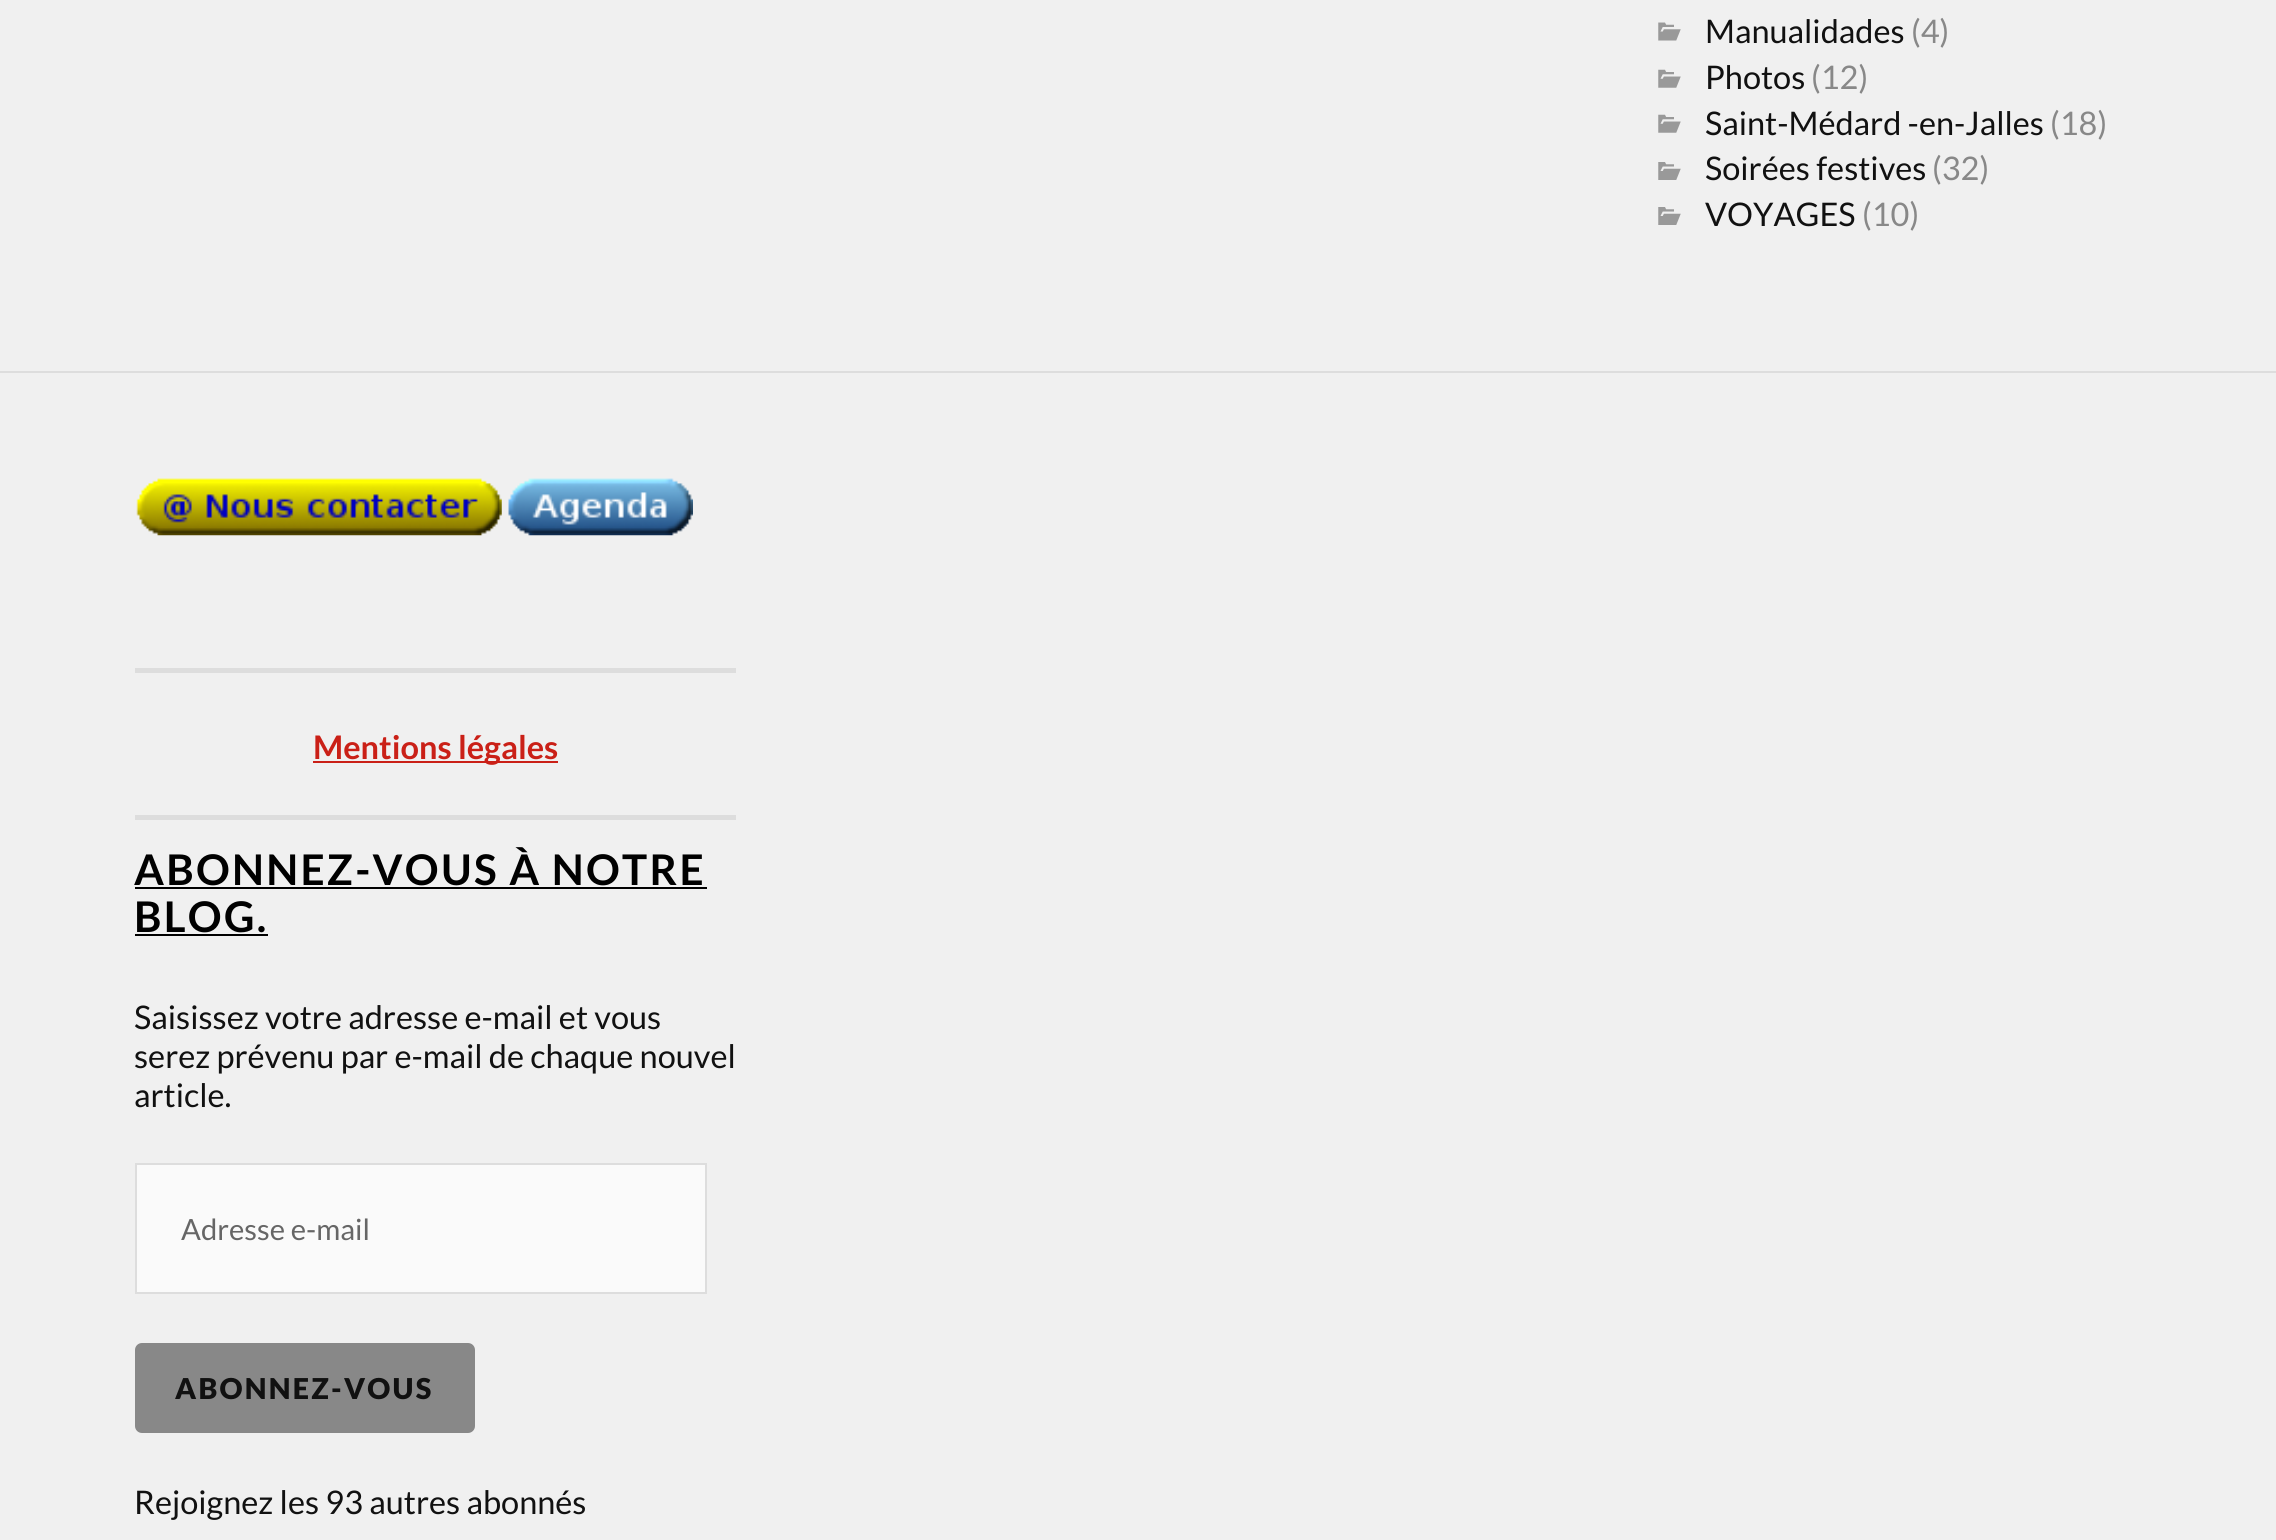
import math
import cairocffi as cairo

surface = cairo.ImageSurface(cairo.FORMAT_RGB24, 2276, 1540)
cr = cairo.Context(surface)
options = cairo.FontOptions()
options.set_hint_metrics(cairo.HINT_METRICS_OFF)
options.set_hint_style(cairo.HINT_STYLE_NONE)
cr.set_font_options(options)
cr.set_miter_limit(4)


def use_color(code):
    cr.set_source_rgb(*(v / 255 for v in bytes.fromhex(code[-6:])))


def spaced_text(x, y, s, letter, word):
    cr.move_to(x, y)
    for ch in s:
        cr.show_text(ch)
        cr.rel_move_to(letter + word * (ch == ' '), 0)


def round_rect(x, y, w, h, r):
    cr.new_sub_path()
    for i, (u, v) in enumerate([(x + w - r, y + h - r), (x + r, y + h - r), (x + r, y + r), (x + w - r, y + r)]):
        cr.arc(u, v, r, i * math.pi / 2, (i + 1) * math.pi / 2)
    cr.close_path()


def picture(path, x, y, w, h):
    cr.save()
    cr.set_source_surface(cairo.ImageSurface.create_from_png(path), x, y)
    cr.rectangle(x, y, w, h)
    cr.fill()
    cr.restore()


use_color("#f0f0f0")
cr.paint()
picture("img1.png", 1658, 22, 23, 19)
cr.select_font_face("Lato")
cr.set_font_size(32.5)
use_color("#111111")
cr.move_to(1705, 43)
cr.show_text("Manualidades")
use_color("#888888")
cr.move_to(1911, 43)
cr.show_text("(4)")
picture("img2.png", 1658, 69, 23, 19)
use_color("#111111")
cr.move_to(1705, 89)
cr.show_text("Photos")
use_color("#888888")
cr.move_to(1811, 89)
cr.show_text("(12)")
picture("img2.png", 1658, 114, 23, 19)
use_color("#111111")
cr.move_to(1705, 135)
cr.show_text("Saint-Médard -en-Jalles")
use_color("#888888")
cr.move_to(2050, 135)
cr.show_text("(18)")
picture("img3.png", 1658, 162, 23, 18)
use_color("#111111")
cr.move_to(1705, 180)
cr.show_text("Soirées festives")
use_color("#888888")
cr.move_to(1932, 180)
cr.show_text("(32)")
picture("img3.png", 1658, 207, 23, 18)
use_color("#111111")
cr.move_to(1705, 226)
cr.show_text("VOYAGES")
use_color("#888888")
cr.move_to(1862, 226)
cr.show_text("(10)")
use_color("#dddddd")
cr.rectangle(0, 371, 2276, 2)
cr.fill()
picture("img4.png", 136, 478, 366, 58)
picture("img5.png", 508, 478, 185, 58)
cr.rectangle(135, 668, 601, 5)
cr.fill()
use_color("#ca2017")
cr.rectangle(313, 761, 245, 2)
cr.fill()
cr.select_font_face("Lato", cairo.FONT_SLANT_NORMAL, cairo.FONT_WEIGHT_BOLD)
cr.move_to(313, 759)
cr.show_text("Mentions légales")
use_color("#dddddd")
cr.rectangle(135, 815, 601, 5)
cr.fill()
cr.set_font_size(42.25)
use_color("#000000")
spaced_text(134, 885, "ABONNEZ-VOUS À NOTRE", 2.25, 0)
cr.rectangle(135, 887, 572, 2)
cr.fill()
spaced_text(134, 932, "BLOG.", 2.25, 0)
cr.rectangle(135, 934, 133, 2)
cr.fill()
cr.select_font_face("Lato")
cr.set_font_size(32.5)
use_color("#111111")
cr.move_to(134, 1029)
cr.show_text("Saisissez votre adresse e-mail et vous")
cr.move_to(134, 1068)
cr.show_text("serez prévenu par e-mail de chaque nouvel")
cr.move_to(134, 1107)
cr.show_text("article.")
use_color("#fafafa")
cr.rectangle(136, 1164, 570, 129)
cr.fill_preserve()
use_color("#dddddd")
cr.stroke()
cr.set_font_size(29.25)
use_color("#666666")
cr.move_to(181, 1240)
cr.show_text("Adresse e-mail")
use_color("#888888")
round_rect(135, 1343, 340, 90, 7)
cr.fill()
cr.select_font_face("Lato Black")
cr.set_font_size(28.75)
use_color("#111111")
spaced_text(175, 1399, "ABONNEZ-VOUS", 2.25, 0)
cr.select_font_face("Lato")
cr.set_font_size(32.5)
cr.move_to(134, 1514)
cr.show_text("Rejoignez les 93 autres abonnés")
surface.write_to_png("result.png")
